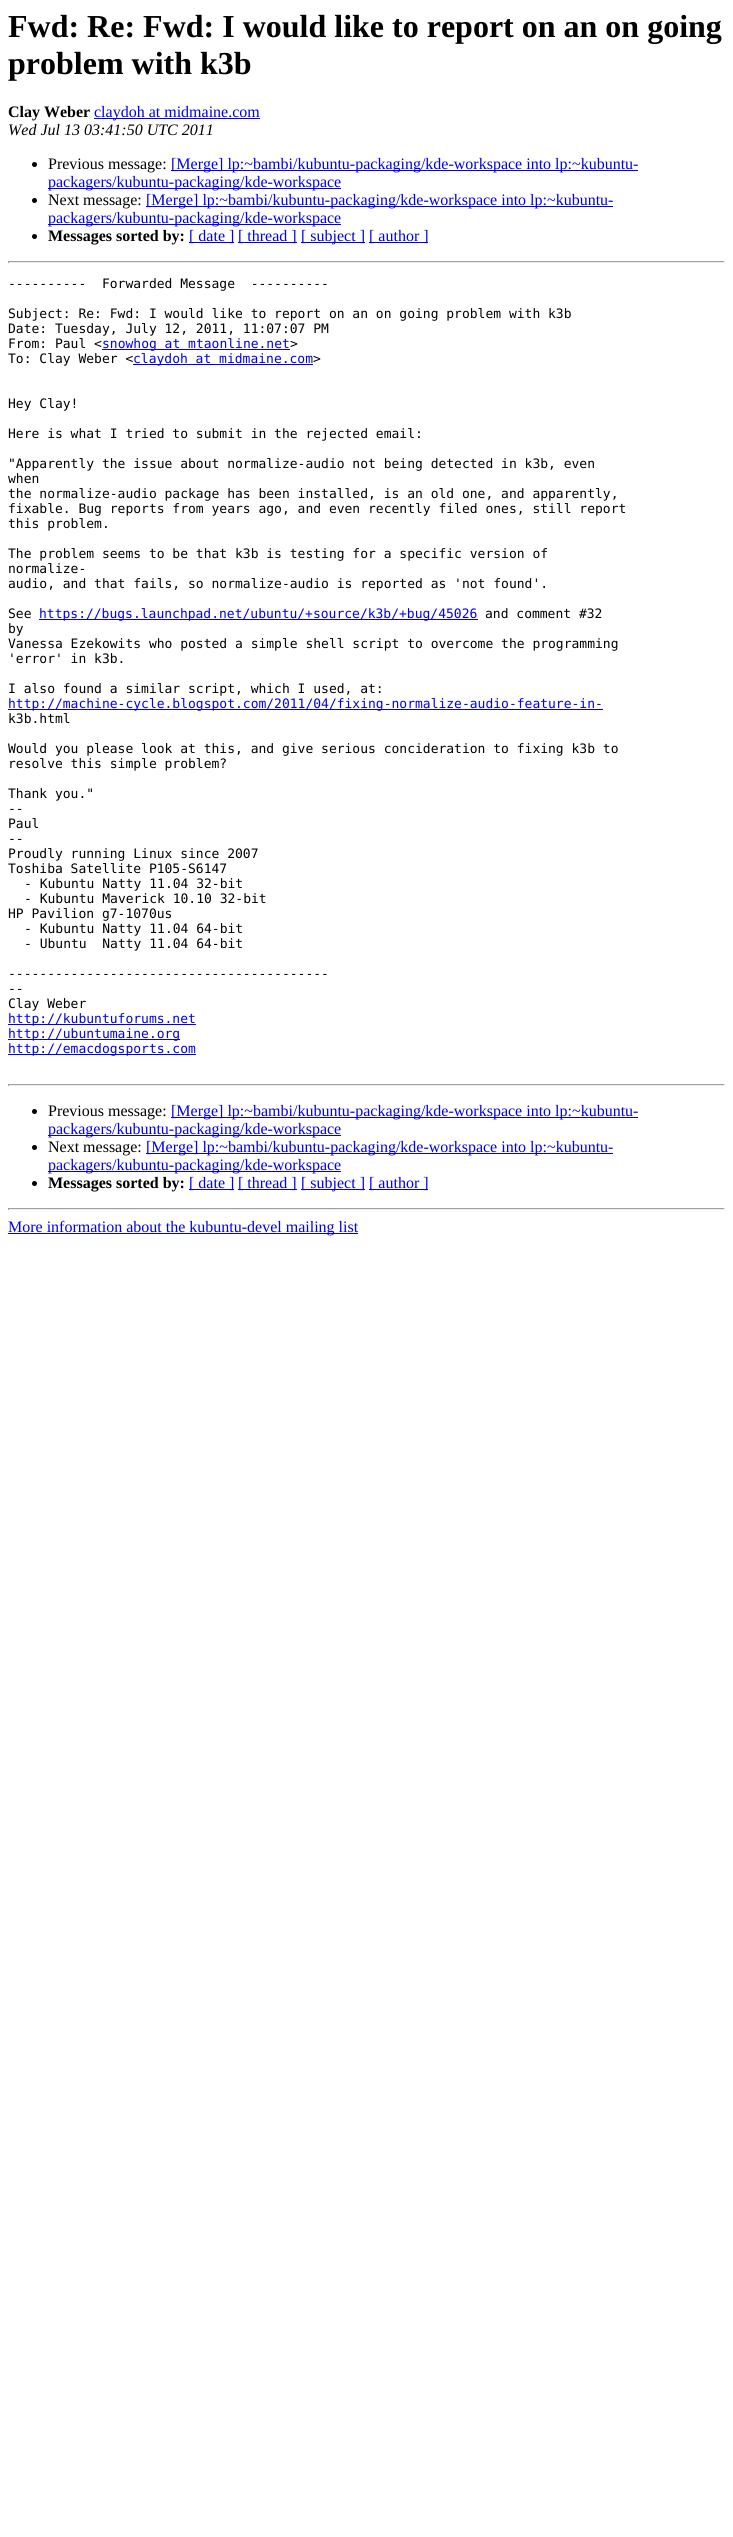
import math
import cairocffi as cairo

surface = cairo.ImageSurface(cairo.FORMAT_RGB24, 733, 2537)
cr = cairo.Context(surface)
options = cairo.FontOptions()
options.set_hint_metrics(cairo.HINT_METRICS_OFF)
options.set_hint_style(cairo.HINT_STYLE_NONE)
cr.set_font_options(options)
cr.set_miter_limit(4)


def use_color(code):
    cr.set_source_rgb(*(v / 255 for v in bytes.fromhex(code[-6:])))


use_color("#ffffff")
cr.paint()
cr.select_font_face("Liberation Serif", cairo.FONT_SLANT_NORMAL, cairo.FONT_WEIGHT_BOLD)
cr.set_font_size(32)
use_color("#000000")
cr.move_to(8, 37)
cr.show_text("Fwd: Re: Fwd: I would like to report on an on going")
cr.move_to(8, 74)
cr.show_text("problem with k3b")
cr.set_font_size(16)
cr.move_to(8, 117)
cr.show_text("Clay Weber")
use_color("#0000ee")
cr.rectangle(94, 118, 166, 1)
cr.fill()
cr.select_font_face("Liberation Serif")
cr.move_to(94, 117)
cr.show_text("claydoh at midmaine.com")
cr.select_font_face("Liberation Serif", cairo.FONT_SLANT_ITALIC)
use_color("#000000")
cr.move_to(8, 135)
cr.show_text("Wed Jul 13 03:41:50 UTC 2011")
cr.new_path()
cr.arc(34.5, 164.5, 2.5, 0, 2 * math.pi)
cr.fill()
cr.select_font_face("Liberation Serif")
cr.move_to(48, 169)
cr.show_text("Previous message:")
use_color("#0000ee")
cr.rectangle(171, 170, 467, 1)
cr.fill()
cr.move_to(171, 169)
cr.show_text("[Merge] lp:~bambi/kubuntu-packaging/kde-workspace into lp:~kubuntu-")
cr.rectangle(48, 188, 293, 1)
cr.fill()
cr.move_to(48, 187)
cr.show_text("packagers/kubuntu-packaging/kde-workspace")
use_color("#000000")
cr.new_path()
cr.arc(34.5, 200.5, 2.5, 0, 2 * math.pi)
cr.fill()
cr.move_to(48, 205)
cr.show_text("Next message:")
use_color("#0000ee")
cr.rectangle(146, 206, 467, 1)
cr.fill()
cr.move_to(146, 205)
cr.show_text("[Merge] lp:~bambi/kubuntu-packaging/kde-workspace into lp:~kubuntu-")
cr.rectangle(48, 224, 293, 1)
cr.fill()
cr.move_to(48, 223)
cr.show_text("packagers/kubuntu-packaging/kde-workspace")
use_color("#000000")
cr.new_path()
cr.arc(34.5, 236.5, 2.5, 0, 2 * math.pi)
cr.fill()
cr.select_font_face("Liberation Serif", cairo.FONT_SLANT_NORMAL, cairo.FONT_WEIGHT_BOLD)
cr.move_to(48, 241)
cr.show_text("Messages sorted by:")
use_color("#0000ee")
cr.rectangle(189, 242, 45, 1)
cr.fill()
cr.select_font_face("Liberation Serif")
cr.move_to(189, 241)
cr.show_text("[ date ]")
cr.rectangle(238, 242, 59, 1)
cr.fill()
cr.move_to(238, 241)
cr.show_text("[ thread ]")
cr.rectangle(301, 242, 64, 1)
cr.fill()
cr.move_to(301, 241)
cr.show_text("[ subject ]")
cr.rectangle(369, 242, 59, 1)
cr.fill()
cr.move_to(369, 241)
cr.show_text("[ author ]")
use_color("#9f9f9f")
cr.rectangle(8, 261, 717, 1)
cr.fill()
use_color("#eeeeee")
cr.rectangle(724, 261, 1, 2)
cr.fill()
cr.rectangle(8, 262, 717, 1)
cr.fill()
use_color("#9f9f9f")
cr.rectangle(8, 261, 1, 2)
cr.fill()
cr.select_font_face("DejaVu Sans Mono")
cr.set_font_size(13)
use_color("#000000")
cr.move_to(8, 288)
cr.show_text("----------  Forwarded Message  ----------")
cr.move_to(8, 318)
cr.show_text("Subject: Re: Fwd: I would like to report on an on going problem with k3b")
cr.move_to(8, 333)
cr.show_text("Date: Tuesday, July 12, 2011, 11:07:07 PM")
cr.move_to(8, 348)
cr.show_text("From: Paul <")
use_color("#0000ee")
cr.rectangle(102, 349, 188, 1)
cr.fill()
cr.move_to(102, 348)
cr.show_text("snowhog at mtaonline.net")
use_color("#000000")
cr.move_to(290, 348)
cr.show_text(">")
cr.move_to(8, 363)
cr.show_text("To: Clay Weber <")
use_color("#0000ee")
cr.rectangle(133, 364, 180, 1)
cr.fill()
cr.move_to(133, 363)
cr.show_text("claydoh at midmaine.com")
use_color("#000000")
cr.move_to(313, 363)
cr.show_text(">")
cr.move_to(8, 408)
cr.show_text("Hey Clay!")
cr.move_to(8, 438)
cr.show_text("Here is what I tried to submit in the rejected email:")
cr.move_to(8, 468)
cr.show_text("\"Apparently the issue about normalize-audio not being detected in k3b, even")
cr.move_to(8, 483)
cr.show_text("when")
cr.move_to(8, 498)
cr.show_text("the normalize-audio package has been installed, is an old one, and apparently,")
cr.move_to(8, 513)
cr.show_text("fixable. Bug reports from years ago, and even recently filed ones, still report")
cr.move_to(8, 528)
cr.show_text("this problem.")
cr.move_to(8, 558)
cr.show_text("The problem seems to be that k3b is testing for a specific version of")
cr.move_to(8, 573)
cr.show_text("normalize-")
cr.move_to(8, 588)
cr.show_text("audio, and that fails, so normalize-audio is reported as 'not found'.")
cr.move_to(8, 618)
cr.show_text("See")
use_color("#0000ee")
cr.rectangle(39, 619, 439, 1)
cr.fill()
cr.move_to(39, 618)
cr.show_text("https://bugs.launchpad.net/ubuntu/+source/k3b/+bug/45026")
use_color("#000000")
cr.move_to(485, 618)
cr.show_text("and comment #32")
cr.move_to(8, 633)
cr.show_text("by")
cr.move_to(8, 648)
cr.show_text("Vanessa Ezekowits who posted a simple shell script to overcome the programming")
cr.move_to(8, 663)
cr.show_text("'error' in k3b.")
cr.move_to(8, 693)
cr.show_text("I also found a similar script, which I used, at:")
use_color("#0000ee")
cr.rectangle(8, 709, 595, 1)
cr.fill()
cr.move_to(8, 708)
cr.show_text("http://machine-cycle.blogspot.com/2011/04/fixing-normalize-audio-feature-in-")
use_color("#000000")
cr.move_to(8, 723)
cr.show_text("k3b.html")
cr.move_to(8, 753)
cr.show_text("Would you please look at this, and give serious concideration to fixing k3b to")
cr.move_to(8, 768)
cr.show_text("resolve this simple problem?")
cr.move_to(8, 798)
cr.show_text("Thank you.\"")
cr.move_to(8, 813)
cr.show_text("--")
cr.move_to(8, 828)
cr.show_text("Paul")
cr.move_to(8, 843)
cr.show_text("--")
cr.move_to(8, 858)
cr.show_text("Proudly running Linux since 2007")
cr.move_to(8, 873)
cr.show_text("Toshiba Satellite P105-S6147")
cr.move_to(24, 888)
cr.show_text("- Kubuntu Natty 11.04 32-bit")
cr.move_to(24, 903)
cr.show_text("- Kubuntu Maverick 10.10 32-bit")
cr.move_to(8, 918)
cr.show_text("HP Pavilion g7-1070us")
cr.move_to(24, 933)
cr.show_text("- Kubuntu Natty 11.04 64-bit")
cr.move_to(24, 948)
cr.show_text("- Ubuntu  Natty 11.04 64-bit")
cr.move_to(8, 978)
cr.show_text("-----------------------------------------")
cr.move_to(8, 993)
cr.show_text("--")
cr.move_to(8, 1008)
cr.show_text("Clay Weber")
use_color("#0000ee")
cr.rectangle(8, 1024, 188, 1)
cr.fill()
cr.move_to(8, 1023)
cr.show_text("http://kubuntuforums.net")
cr.rectangle(8, 1039, 172, 1)
cr.fill()
cr.move_to(8, 1038)
cr.show_text("http://ubuntumaine.org")
cr.rectangle(8, 1054, 188, 1)
cr.fill()
cr.move_to(8, 1053)
cr.show_text("http://emacdogsports.com")
use_color("#9f9f9f")
cr.rectangle(8, 1084, 717, 1)
cr.fill()
use_color("#eeeeee")
cr.rectangle(724, 1084, 1, 2)
cr.fill()
cr.rectangle(8, 1085, 717, 1)
cr.fill()
use_color("#9f9f9f")
cr.rectangle(8, 1084, 1, 2)
cr.fill()
use_color("#000000")
cr.arc(34.5, 1111.5, 2.5, 0, 2 * math.pi)
cr.fill()
cr.select_font_face("Liberation Serif")
cr.set_font_size(16)
cr.move_to(48, 1116)
cr.show_text("Previous message:")
use_color("#0000ee")
cr.rectangle(171, 1117, 467, 1)
cr.fill()
cr.move_to(171, 1116)
cr.show_text("[Merge] lp:~bambi/kubuntu-packaging/kde-workspace into lp:~kubuntu-")
cr.rectangle(48, 1135, 293, 1)
cr.fill()
cr.move_to(48, 1134)
cr.show_text("packagers/kubuntu-packaging/kde-workspace")
use_color("#000000")
cr.new_path()
cr.arc(34.5, 1147.5, 2.5, 0, 2 * math.pi)
cr.fill()
cr.move_to(48, 1152)
cr.show_text("Next message:")
use_color("#0000ee")
cr.rectangle(146, 1153, 467, 1)
cr.fill()
cr.move_to(146, 1152)
cr.show_text("[Merge] lp:~bambi/kubuntu-packaging/kde-workspace into lp:~kubuntu-")
cr.rectangle(48, 1171, 293, 1)
cr.fill()
cr.move_to(48, 1170)
cr.show_text("packagers/kubuntu-packaging/kde-workspace")
use_color("#000000")
cr.new_path()
cr.arc(34.5, 1183.5, 2.5, 0, 2 * math.pi)
cr.fill()
cr.select_font_face("Liberation Serif", cairo.FONT_SLANT_NORMAL, cairo.FONT_WEIGHT_BOLD)
cr.move_to(48, 1188)
cr.show_text("Messages sorted by:")
use_color("#0000ee")
cr.rectangle(189, 1189, 45, 1)
cr.fill()
cr.select_font_face("Liberation Serif")
cr.move_to(189, 1188)
cr.show_text("[ date ]")
cr.rectangle(238, 1189, 59, 1)
cr.fill()
cr.move_to(238, 1188)
cr.show_text("[ thread ]")
cr.rectangle(301, 1189, 64, 1)
cr.fill()
cr.move_to(301, 1188)
cr.show_text("[ subject ]")
cr.rectangle(369, 1189, 59, 1)
cr.fill()
cr.move_to(369, 1188)
cr.show_text("[ author ]")
use_color("#9f9f9f")
cr.rectangle(8, 1208, 717, 1)
cr.fill()
use_color("#eeeeee")
cr.rectangle(724, 1208, 1, 2)
cr.fill()
cr.rectangle(8, 1209, 717, 1)
cr.fill()
use_color("#9f9f9f")
cr.rectangle(8, 1208, 1, 2)
cr.fill()
use_color("#0000ee")
cr.rectangle(8, 1233, 350, 1)
cr.fill()
cr.move_to(8, 1232)
cr.show_text("More information about the kubuntu-devel mailing list")
surface.write_to_png("result.png")
